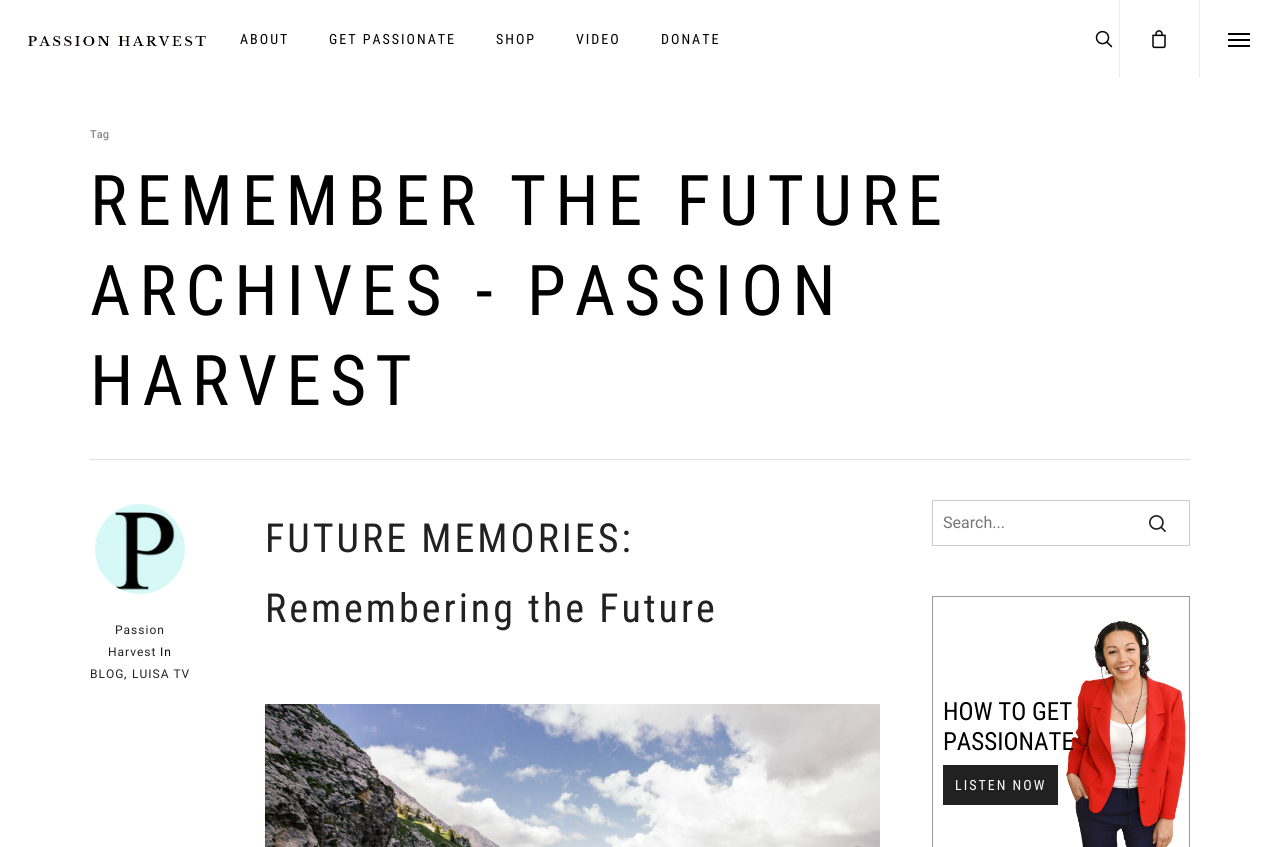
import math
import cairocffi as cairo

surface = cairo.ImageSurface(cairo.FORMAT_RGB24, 1280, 847)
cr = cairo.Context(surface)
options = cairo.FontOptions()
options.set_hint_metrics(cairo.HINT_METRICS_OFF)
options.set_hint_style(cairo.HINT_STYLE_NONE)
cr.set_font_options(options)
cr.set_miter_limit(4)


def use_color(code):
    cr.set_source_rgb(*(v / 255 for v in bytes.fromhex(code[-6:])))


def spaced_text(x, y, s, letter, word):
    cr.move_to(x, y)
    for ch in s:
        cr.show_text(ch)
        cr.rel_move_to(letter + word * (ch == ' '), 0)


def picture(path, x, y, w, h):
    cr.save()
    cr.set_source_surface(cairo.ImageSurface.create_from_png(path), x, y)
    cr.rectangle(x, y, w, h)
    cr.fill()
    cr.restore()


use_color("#ffffff")
cr.paint()
picture("img1.png", 28, 36, 178, 10)
cr.select_font_face("Roboto Condensed")
cr.set_font_size(14)
use_color("#000000")
spaced_text(240, 44, "ABOUT", 2, 0)
spaced_text(329, 44, "GET PASSIONATE", 2, 0)
spaced_text(496, 44, "SHOP", 2, 0)
spaced_text(576, 44, "VIDEO", 2, 0)
spaced_text(661, 44, "DONATE", 2, 0)
picture("img2.png", 1095, 30, 18, 18)
use_color("#ededed")
cr.rectangle(1119, 0, 1, 78)
cr.fill()
picture("img3.png", 1152, 30, 14, 19)
cr.rectangle(1199, 0, 1, 78)
cr.fill()
use_color("#000000")
cr.rectangle(1228, 33, 22, 2)
cr.fill()
cr.rectangle(1228, 45, 22, 2)
cr.fill()
cr.rectangle(1228, 39, 22, 2)
cr.fill()
use_color("#dddddd")
cr.rectangle(90, 459, 1100, 1)
cr.fill()
cr.select_font_face("Roboto Medium")
cr.set_font_size(11)
use_color("#888888")
cr.move_to(90, 138)
cr.show_text("Tag")
cr.select_font_face("Roboto Condensed")
cr.set_font_size(70)
use_color("#000000")
spaced_text(90, 225, "REMEMBER THE FUTURE", 9, 0)
spaced_text(90, 315, "ARCHIVES - PASSION", 9, 0)
spaced_text(90, 405, "HARVEST", 9, 0)
cr.set_font_size(40)
use_color("#212121")
spaced_text(265, 552, "FUTURE MEMORIES:", 3, 0)
spaced_text(265, 622, "Remembering the Future", 3, 0)
picture("img4.png", 265, 704, 615, 143)
picture("img5.png", 95, 504, 90, 90)
cr.select_font_face("Roboto")
cr.set_font_size(12)
spaced_text(115, 634, "Passion", 1, 0)
spaced_text(108, 656, "Harvest", 1, 0)
use_color("#000000")
spaced_text(160, 656, "In", 1, 0)
use_color("#212121")
spaced_text(90, 678, "BLOG", 1, 0)
use_color("#000000")
spaced_text(124, 678, ",", 1, 0)
use_color("#212121")
spaced_text(132, 678, "LUISA TV", 1, 0)
cr.rectangle(932.5, 500.5, 257, 45)
use_color("#cccccc")
cr.set_line_width(1)
cr.stroke()
cr.set_font_size(16)
use_color("#757575")
cr.move_to(943, 528)
cr.show_text("Search...")
picture("img6.png", 1149, 515, 17, 17)
picture("img7.png", 1066, 597, 120, 250)
cr.rectangle(932.5, 596.5, 257, 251)
use_color("#999999")
cr.stroke()
cr.select_font_face("Roboto Condensed")
cr.set_font_size(25)
use_color("#000000")
cr.move_to(943, 720)
cr.show_text("HOW TO GET")
cr.move_to(943, 750)
cr.show_text("PASSIONATE")
use_color("#212121")
cr.rectangle(943, 765, 115, 40)
cr.fill()
cr.set_font_size(14)
use_color("#ffffff")
spaced_text(955, 790, "LISTEN NOW", 2, 0)
surface.write_to_png("result.png")
